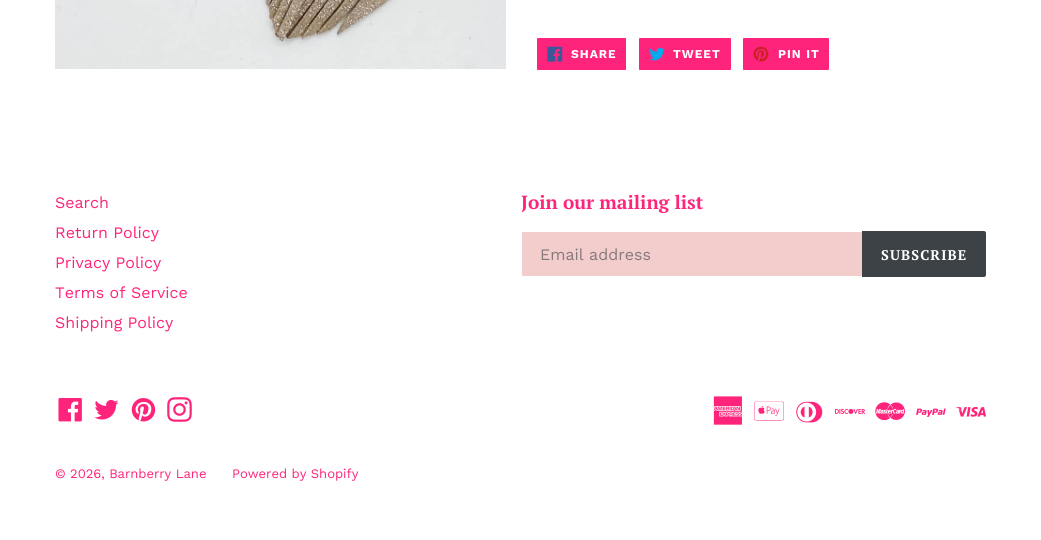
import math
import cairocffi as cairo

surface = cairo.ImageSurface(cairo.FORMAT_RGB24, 1041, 540)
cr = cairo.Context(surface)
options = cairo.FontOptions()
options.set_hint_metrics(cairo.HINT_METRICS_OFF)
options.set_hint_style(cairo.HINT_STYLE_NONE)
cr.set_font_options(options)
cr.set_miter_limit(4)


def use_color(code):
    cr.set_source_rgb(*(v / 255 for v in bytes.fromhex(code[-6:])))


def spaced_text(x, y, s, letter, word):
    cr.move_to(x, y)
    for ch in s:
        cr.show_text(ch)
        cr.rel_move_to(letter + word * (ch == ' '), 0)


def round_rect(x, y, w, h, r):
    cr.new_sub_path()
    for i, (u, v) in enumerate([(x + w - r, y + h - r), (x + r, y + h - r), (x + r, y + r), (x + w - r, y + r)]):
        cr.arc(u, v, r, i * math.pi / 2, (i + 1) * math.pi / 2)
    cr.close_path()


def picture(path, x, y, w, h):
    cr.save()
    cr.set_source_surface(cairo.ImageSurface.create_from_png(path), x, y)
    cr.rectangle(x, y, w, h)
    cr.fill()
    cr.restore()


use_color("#ffffff")
cr.paint()
picture("img1.png", 55, 0, 451, 69)
use_color("#ff247b")
round_rect(536.5, 37.5, 90, 33, 1.5)
cr.fill_preserve()
use_color("#fefeff")
cr.set_line_width(1)
cr.stroke()
picture("img2.png", 547, 46, 16, 16)
cr.select_font_face("Work Sans", cairo.FONT_SLANT_NORMAL, cairo.FONT_WEIGHT_BOLD)
cr.set_font_size(12)
use_color("#ffffff")
spaced_text(571, 58, "SHARE", 1, 0)
use_color("#ff247b")
round_rect(638.5, 37.5, 93, 33, 1.5)
cr.fill_preserve()
use_color("#fefeff")
cr.stroke()
picture("img3.png", 649, 47, 16, 14)
use_color("#ffffff")
spaced_text(673, 58, "TWEET", 1, 0)
use_color("#ff247b")
round_rect(742.5, 37.5, 87, 33, 1.5)
cr.fill_preserve()
use_color("#fefeff")
cr.stroke()
picture("img4.png", 753, 46, 16, 16)
use_color("#ffffff")
spaced_text(778, 58, "PIN IT", 1, 0)
cr.select_font_face("Work Sans")
cr.set_font_size(16)
use_color("#ff247b")
cr.move_to(55, 208)
cr.show_text("Search")
cr.move_to(55, 238)
cr.show_text("Return Policy")
cr.move_to(55, 268)
cr.show_text("Privacy Policy")
cr.move_to(55, 298)
cr.show_text("Terms of Service")
cr.move_to(55, 328)
cr.show_text("Shipping Policy")
cr.select_font_face("PT Serif", cairo.FONT_SLANT_NORMAL, cairo.FONT_WEIGHT_BOLD)
cr.set_font_size(19)
cr.move_to(521, 209)
cr.show_text("Join our mailing list")
use_color("#f3cccc")
cr.new_path()
cr.move_to(523, 231)
cr.line_to(862, 231)
cr.line_to(862, 277)
cr.line_to(523, 277)
cr.curve_to(522, 277, 521, 276, 521, 275)
cr.line_to(521, 233)
cr.curve_to(521, 232, 522, 231, 523, 231)
cr.close_path()
cr.fill()
use_color("#fefeff")
cr.rectangle(522, 231, 340, 1)
cr.fill()
cr.rectangle(522, 276, 340, 1)
cr.fill()
cr.rectangle(521, 232, 1, 44)
cr.fill()
cr.select_font_face("Work Sans")
cr.set_font_size(16)
use_color("#86797c")
cr.move_to(540, 260)
cr.show_text("Email address")
use_color("#3d4246")
cr.new_path()
cr.move_to(862, 231)
cr.line_to(984, 231)
cr.curve_to(985, 231, 986, 232, 986, 233)
cr.line_to(986, 275)
cr.curve_to(986, 276, 985, 277, 984, 277)
cr.line_to(862, 277)
cr.close_path()
cr.fill()
cr.select_font_face("PT Serif", cairo.FONT_SLANT_NORMAL, cairo.FONT_WEIGHT_BOLD)
cr.set_font_size(14)
use_color("#ffffff")
spaced_text(881, 260, "SUBSCRIBE", 1.1, 0)
picture("img5.png", 58, 398, 24, 24)
picture("img6.png", 94, 400, 25, 20)
picture("img7.png", 131, 398, 25, 24)
picture("img8.png", 167, 397, 25, 25)
picture("img9.png", 713, 396, 30, 29)
picture("img10.png", 754, 401, 30, 20)
picture("img11.png", 796, 401, 27, 22)
picture("img12.png", 835, 408, 30, 6)
picture("img13.png", 875, 402, 30, 19)
picture("img14.png", 916, 408, 30, 9)
picture("img15.png", 956, 407, 30, 10)
cr.select_font_face("Work Sans")
cr.set_font_size(13)
use_color("#ff247b")
cr.move_to(55, 478)
cr.show_text("© 2026, Barnberry Lane")
cr.move_to(232, 478)
cr.show_text("Powered by Shopify")
surface.write_to_png("result.png")
